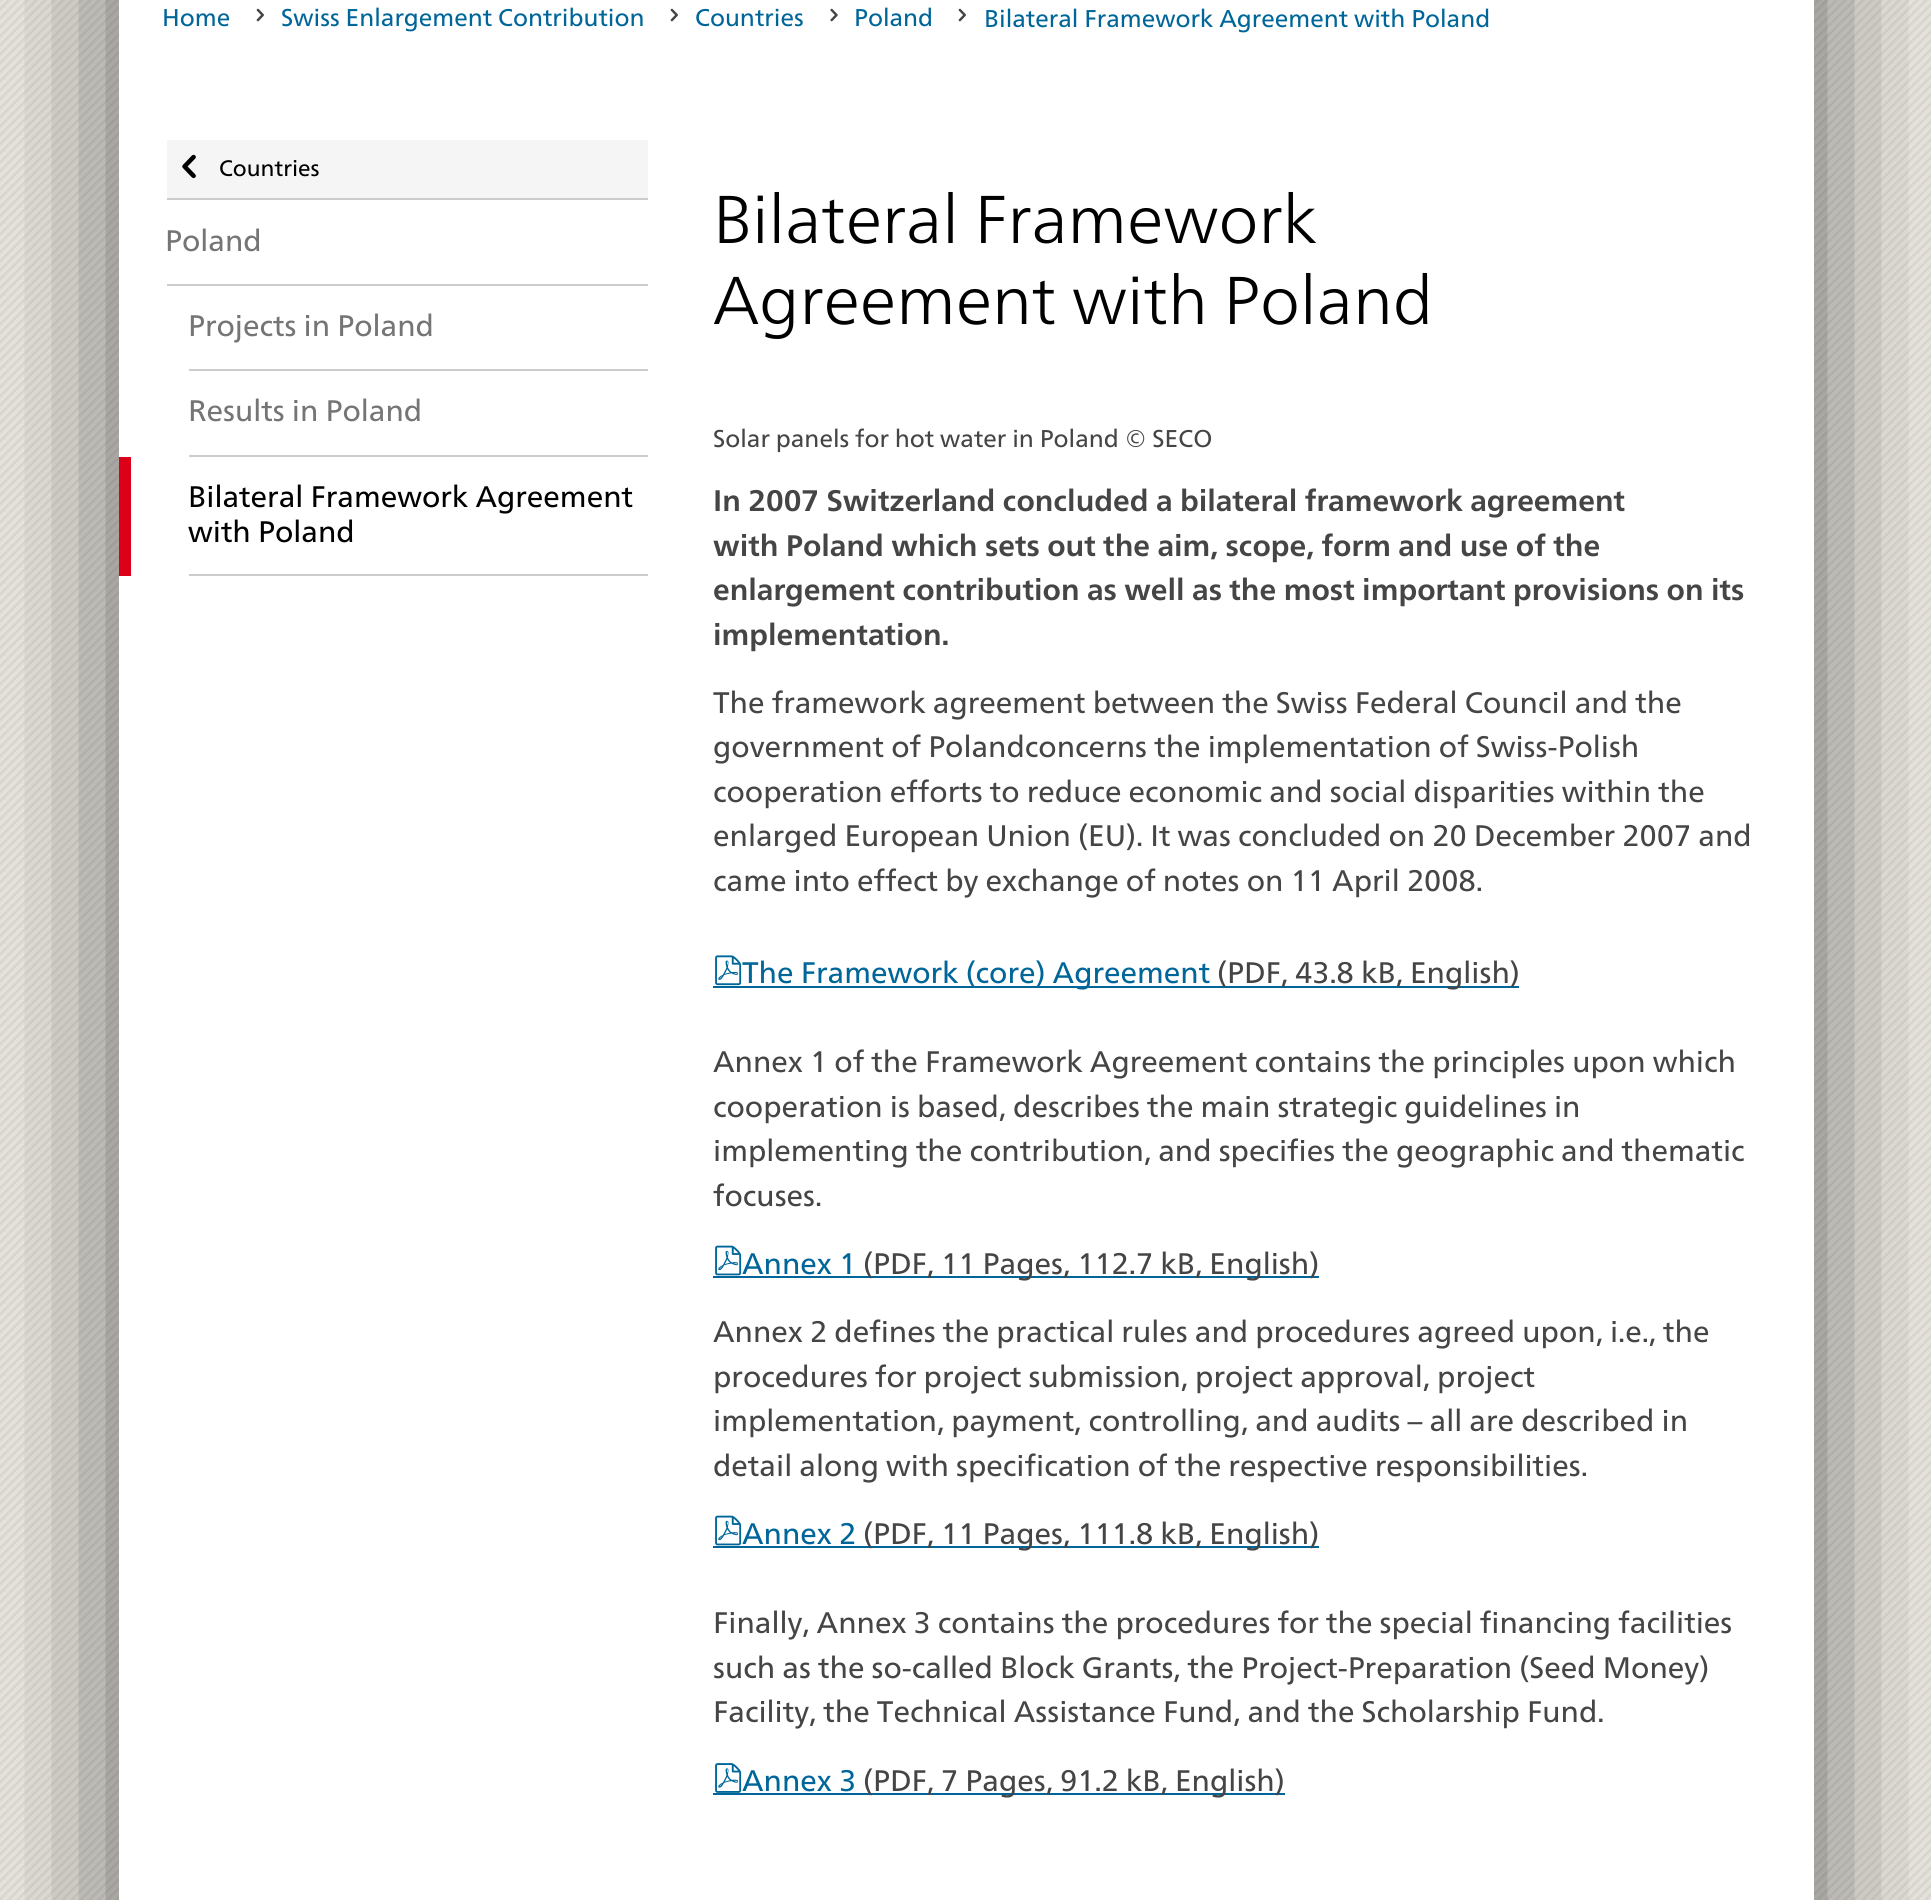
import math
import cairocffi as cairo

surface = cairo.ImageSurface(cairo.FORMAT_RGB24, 1931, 1900)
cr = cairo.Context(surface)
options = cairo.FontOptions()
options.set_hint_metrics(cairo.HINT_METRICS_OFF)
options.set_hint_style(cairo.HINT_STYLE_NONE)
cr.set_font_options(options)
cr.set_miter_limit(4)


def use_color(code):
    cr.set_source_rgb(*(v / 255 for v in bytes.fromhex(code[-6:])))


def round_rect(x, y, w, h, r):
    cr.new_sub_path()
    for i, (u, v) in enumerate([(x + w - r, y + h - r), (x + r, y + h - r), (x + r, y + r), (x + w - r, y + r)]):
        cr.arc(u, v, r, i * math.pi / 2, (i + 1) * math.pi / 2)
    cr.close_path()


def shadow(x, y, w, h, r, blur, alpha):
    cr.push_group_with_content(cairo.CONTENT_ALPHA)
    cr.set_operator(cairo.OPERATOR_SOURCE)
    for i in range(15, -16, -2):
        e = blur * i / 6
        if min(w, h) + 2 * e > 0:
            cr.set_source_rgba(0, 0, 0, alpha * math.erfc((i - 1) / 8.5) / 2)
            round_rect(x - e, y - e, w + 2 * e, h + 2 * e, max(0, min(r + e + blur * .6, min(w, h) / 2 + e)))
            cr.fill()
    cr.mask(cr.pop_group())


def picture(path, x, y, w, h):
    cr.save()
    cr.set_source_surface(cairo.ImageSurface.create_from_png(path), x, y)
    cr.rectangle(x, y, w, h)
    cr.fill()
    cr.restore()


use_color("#ffffff")
cr.paint()
picture("img1.png", 0, 0, 1931, 1900)
use_color("#000000")
shadow(119, -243, 1695, 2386, 0, 81, 0.6)
use_color("#ffffff")
cr.rectangle(119, 0, 1695, 1900)
cr.fill()
cr.select_font_face("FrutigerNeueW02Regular")
cr.set_font_size(24.3)
use_color("#006699")
cr.move_to(162, 26)
cr.show_text("Home")
picture("img2.png", 256, 8, 8, 14)
cr.move_to(281, 26)
cr.show_text("Swiss Enlargement Contribution")
picture("img2.png", 670, 8, 8, 14)
cr.move_to(695, 26)
cr.show_text("Countries")
picture("img3.png", 830, 8, 8, 14)
cr.move_to(854, 26)
cr.show_text("Poland")
picture("img2.png", 958, 8, 8, 14)
cr.move_to(984, 27)
cr.show_text("Bilateral Framework Agreement with Poland")
use_color("#f5f5f5")
cr.rectangle(167, 140, 481, 58)
cr.fill()
use_color("#cccccc")
cr.rectangle(167, 198, 481, 2)
cr.fill()
picture("img4.png", 182, 154, 14, 25)
cr.set_font_size(22.5)
use_color("#000000")
cr.move_to(219, 176)
cr.show_text("Countries")
use_color("#cccccc")
cr.rectangle(167, 284, 481, 2)
cr.fill()
cr.set_font_size(29.7)
use_color("#757575")
cr.move_to(165, 251)
cr.show_text("Poland")
use_color("#cccccc")
cr.rectangle(189, 369, 459, 2)
cr.fill()
use_color("#757575")
cr.move_to(188, 336)
cr.show_text("Projects in Poland")
use_color("#cccccc")
cr.rectangle(189, 455, 459, 2)
cr.fill()
use_color("#757575")
cr.move_to(188, 421)
cr.show_text("Results in Poland")
use_color("#dc0018")
cr.rectangle(119, 457, 12, 119)
cr.fill()
use_color("#cccccc")
cr.rectangle(189, 574, 459, 2)
cr.fill()
use_color("#000000")
cr.move_to(188, 507)
cr.show_text("Bilateral Framework Agreement")
cr.move_to(188, 542)
cr.show_text("with Poland")
cr.select_font_face("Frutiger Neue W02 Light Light")
cr.set_font_size(67.5)
cr.move_to(713, 243)
cr.show_text("Bilateral Framework")
cr.move_to(713, 324)
cr.show_text("Agreement with Poland")
cr.select_font_face("FrutigerNeueW02Regular")
cr.set_font_size(24.3)
use_color("#454545")
cr.move_to(713, 447)
cr.show_text("Solar panels for hot water in Poland © SECO")
cr.select_font_face("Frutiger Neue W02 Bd", cairo.FONT_SLANT_NORMAL, cairo.FONT_WEIGHT_BOLD)
cr.set_font_size(29.7)
cr.move_to(713, 511)
cr.show_text("In 2007 Switzerland concluded a bilateral framework agreement")
cr.move_to(713, 556)
cr.show_text("with Poland which sets out the aim, scope, form and use of the")
cr.move_to(713, 600)
cr.show_text("enlargement contribution as well as the most important provisions on its")
cr.move_to(713, 645)
cr.show_text("implementation.")
cr.select_font_face("FrutigerNeueW02Regular")
cr.move_to(713, 713)
cr.show_text("The framework agreement between the Swiss Federal Council and the")
cr.move_to(713, 757)
cr.show_text("government of Polandconcerns the implementation of Swiss-Polish")
cr.move_to(713, 802)
cr.show_text("cooperation efforts to reduce economic and social disparities within the")
cr.move_to(713, 846)
cr.show_text("enlarged European Union (EU). It was concluded on 20 December 2007 and")
cr.move_to(713, 891)
cr.show_text("came into effect by exchange of notes on 11 April 2008.")
picture("img5.png", 715, 955, 27, 31)
use_color("#006699")
cr.rectangle(713, 986, 806, 2)
cr.fill()
cr.move_to(742, 983)
cr.show_text("The Framework (core) Agreement")
use_color("#454545")
cr.move_to(1217, 983)
cr.show_text("(PDF, 43.8 kB, English)")
cr.move_to(713, 1072)
cr.show_text("Annex 1 of the Framework Agreement contains the principles upon which")
cr.move_to(713, 1117)
cr.show_text("cooperation is based, describes the main strategic guidelines in")
cr.move_to(713, 1161)
cr.show_text("implementing the contribution, and specifies the geographic and thematic")
cr.move_to(713, 1206)
cr.show_text("focuses.")
picture("img6.png", 715, 1245, 27, 31)
use_color("#006699")
cr.move_to(742, 1274)
cr.show_text("Annex 1")
cr.rectangle(713, 1276, 606, 2)
cr.fill()
use_color("#454545")
cr.move_to(863, 1274)
cr.show_text("(PDF, 11 Pages, 112.7 kB, English)")
cr.move_to(713, 1342)
cr.show_text("Annex 2 defines the practical rules and procedures agreed upon, i.e., the")
cr.move_to(713, 1387)
cr.show_text("procedures for project submission, project approval, project")
cr.move_to(713, 1431)
cr.show_text("implementation, payment, controlling, and audits – all are described in")
cr.move_to(713, 1476)
cr.show_text("detail along with specification of the respective responsibilities.")
picture("img6.png", 715, 1515, 27, 31)
use_color("#006699")
cr.move_to(742, 1544)
cr.show_text("Annex 2")
cr.rectangle(713, 1546, 606, 2)
cr.fill()
use_color("#454545")
cr.move_to(863, 1544)
cr.show_text("(PDF, 11 Pages, 111.8 kB, English)")
cr.move_to(713, 1633)
cr.show_text("Finally, Annex 3 contains the procedures for the special financing facilities")
cr.move_to(713, 1678)
cr.show_text("such as the so-called Block Grants, the Project-Preparation (Seed Money)")
cr.move_to(713, 1722)
cr.show_text("Facility, the Technical Assistance Fund, and the Scholarship Fund.")
picture("img7.png", 715, 1763, 27, 30)
use_color("#006699")
cr.move_to(742, 1791)
cr.show_text("Annex 3")
cr.rectangle(713, 1793, 572, 2)
cr.fill()
use_color("#454545")
cr.move_to(863, 1791)
cr.show_text("(PDF, 7 Pages, 91.2 kB, English)")
surface.write_to_png("result.png")
